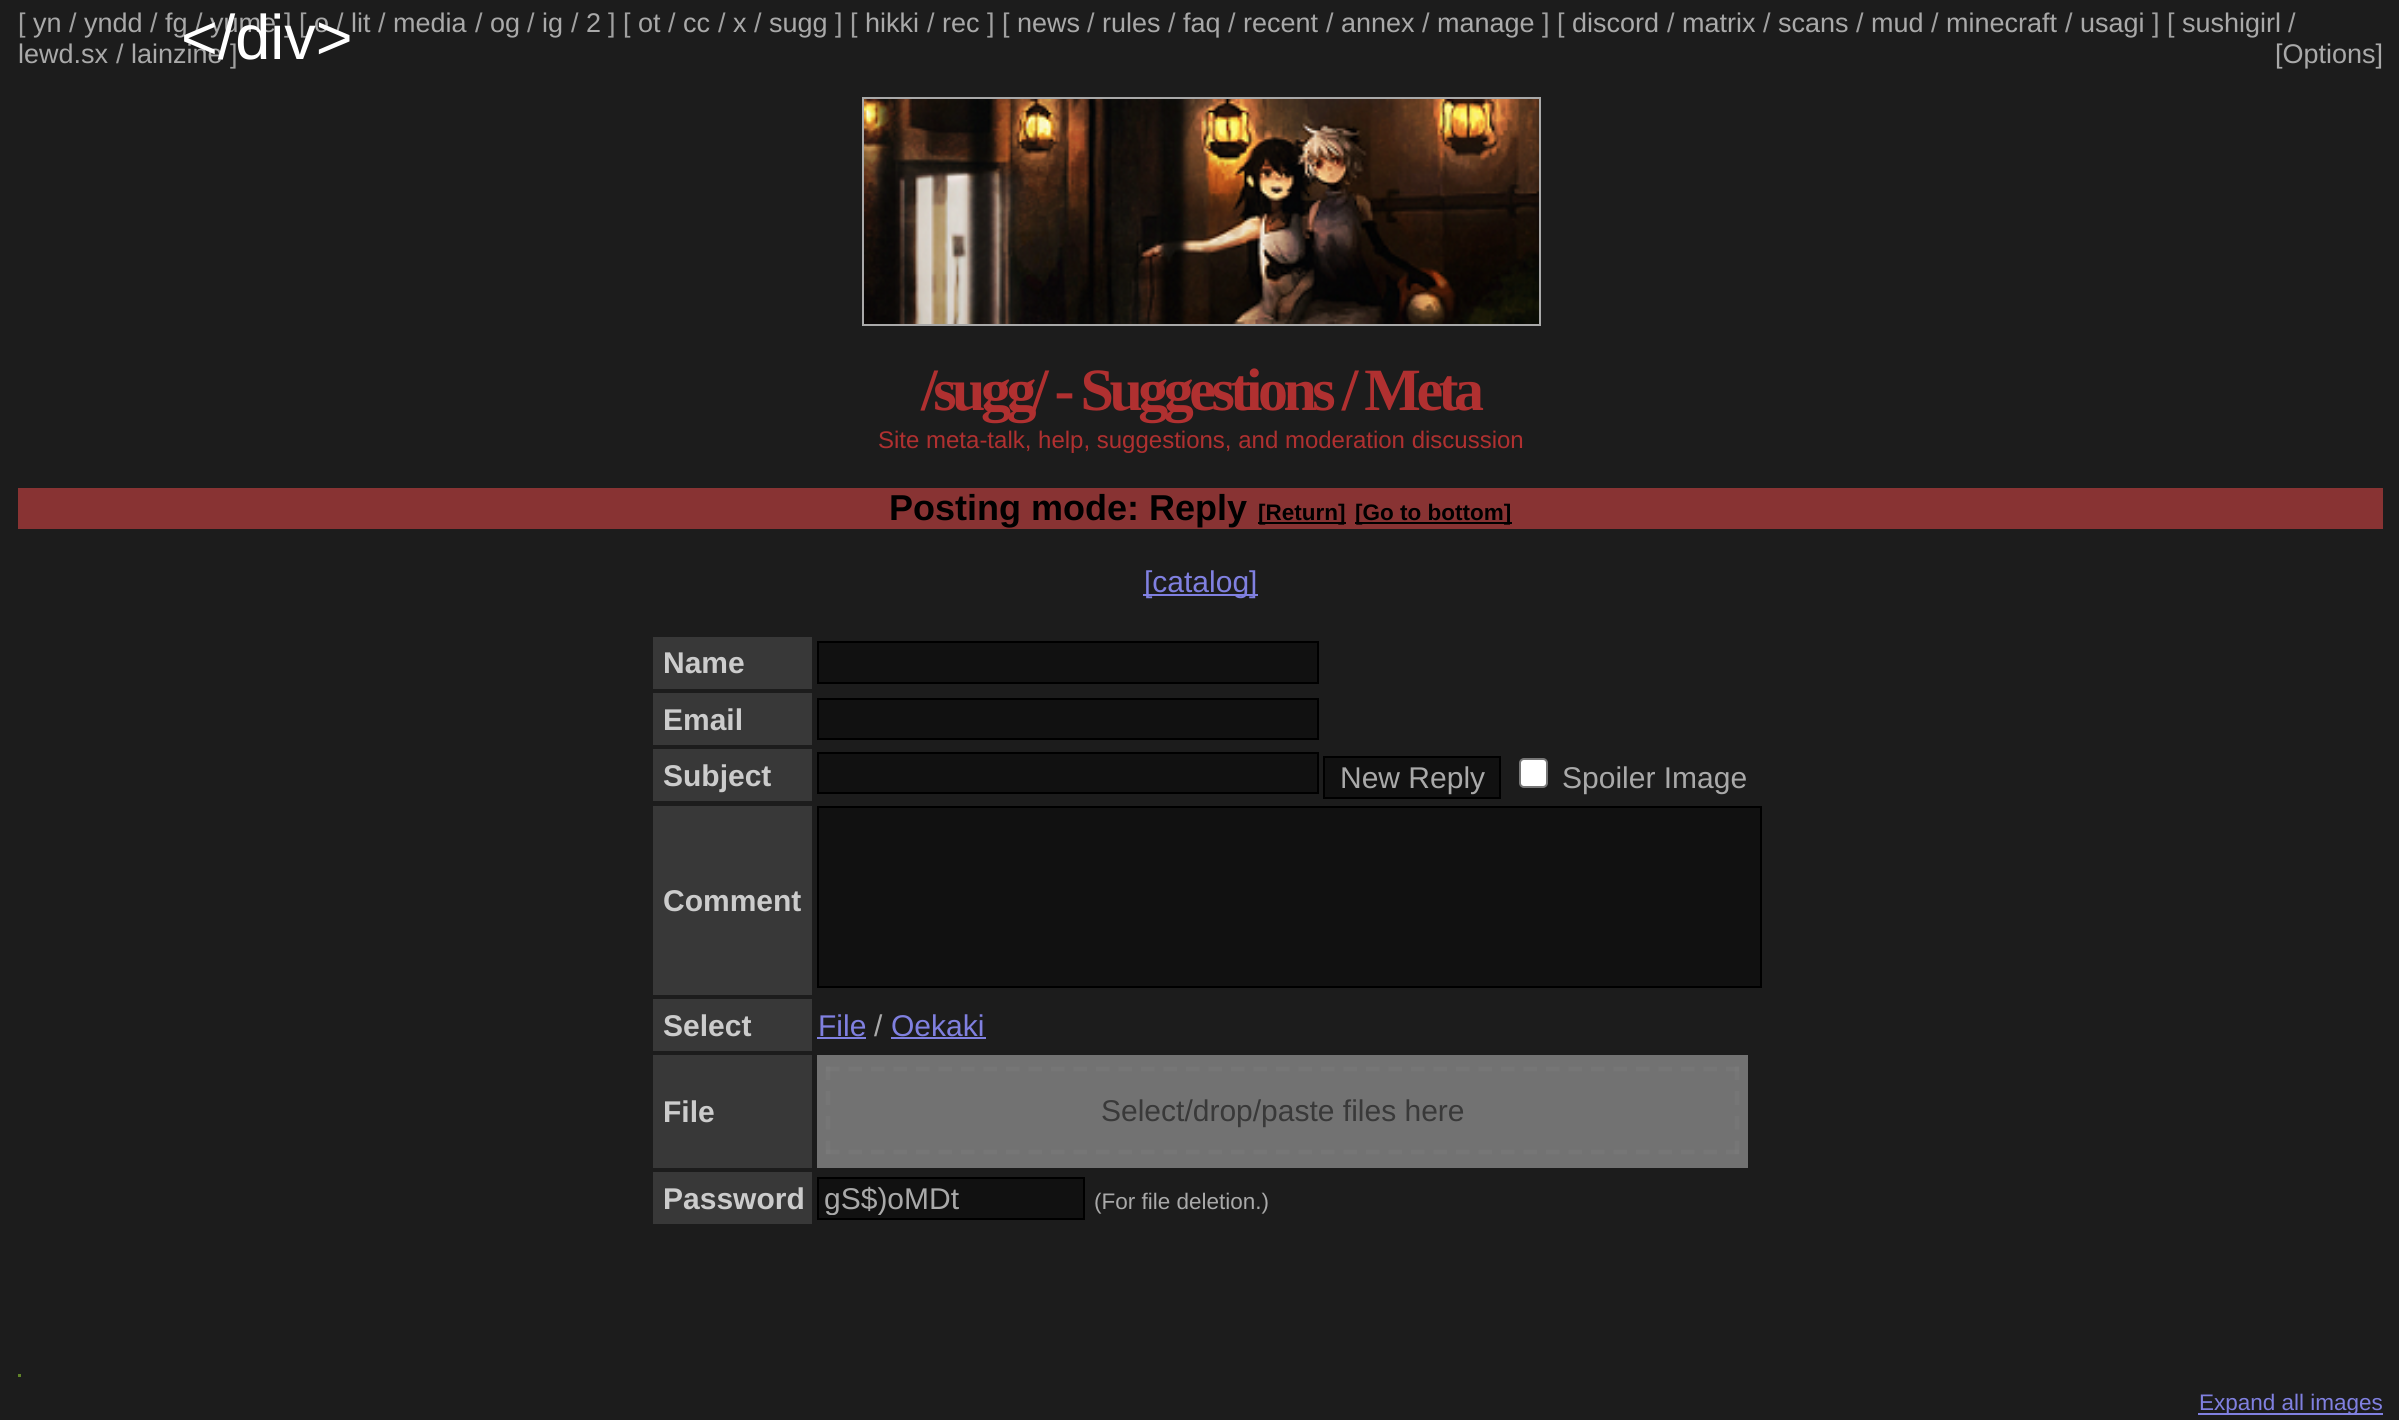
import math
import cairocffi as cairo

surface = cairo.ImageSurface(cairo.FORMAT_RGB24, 2399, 1420)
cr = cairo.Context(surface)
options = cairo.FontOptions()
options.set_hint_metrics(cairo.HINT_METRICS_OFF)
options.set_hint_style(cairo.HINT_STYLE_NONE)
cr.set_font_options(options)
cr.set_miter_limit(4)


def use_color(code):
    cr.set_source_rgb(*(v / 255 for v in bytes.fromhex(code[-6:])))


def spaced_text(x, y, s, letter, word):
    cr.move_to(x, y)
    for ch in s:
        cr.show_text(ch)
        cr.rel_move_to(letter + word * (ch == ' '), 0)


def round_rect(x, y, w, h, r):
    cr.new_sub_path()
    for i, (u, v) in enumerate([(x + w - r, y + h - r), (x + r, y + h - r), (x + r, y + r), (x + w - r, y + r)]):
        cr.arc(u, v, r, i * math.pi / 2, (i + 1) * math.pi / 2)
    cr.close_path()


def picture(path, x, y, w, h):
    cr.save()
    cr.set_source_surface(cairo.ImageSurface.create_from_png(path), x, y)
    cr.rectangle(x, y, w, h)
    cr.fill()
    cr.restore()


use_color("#1c1c1c")
cr.paint()
cr.select_font_face("Liberation Sans")
cr.set_font_size(27)
use_color("#a0a0a0")
cr.move_to(18, 32)
cr.show_text("[")
use_color("#a9a9a9")
cr.move_to(33, 32)
cr.show_text("yn")
use_color("#a0a0a0")
cr.move_to(69, 32)
cr.show_text("/")
use_color("#a9a9a9")
cr.move_to(84, 32)
cr.show_text("yndd")
use_color("#a0a0a0")
cr.move_to(150, 32)
cr.show_text("/")
use_color("#a9a9a9")
cr.move_to(165, 32)
cr.show_text("fg")
use_color("#a0a0a0")
cr.move_to(195, 32)
cr.show_text("/")
use_color("#a9a9a9")
cr.move_to(210, 32)
cr.show_text("yume")
use_color("#a0a0a0")
cr.move_to(284, 32)
cr.show_text("] [")
use_color("#a9a9a9")
cr.move_to(314, 32)
cr.show_text("o")
use_color("#a0a0a0")
cr.move_to(336, 32)
cr.show_text("/")
use_color("#a9a9a9")
cr.move_to(351, 32)
cr.show_text("lit")
use_color("#a0a0a0")
cr.move_to(378, 32)
cr.show_text("/")
use_color("#a9a9a9")
cr.move_to(393, 32)
cr.show_text("media")
use_color("#a0a0a0")
cr.move_to(475, 32)
cr.show_text("/")
use_color("#a9a9a9")
cr.move_to(490, 32)
cr.show_text("og")
use_color("#a0a0a0")
cr.move_to(527, 32)
cr.show_text("/")
use_color("#a9a9a9")
cr.move_to(542, 32)
cr.show_text("ig")
use_color("#a0a0a0")
cr.move_to(571, 32)
cr.show_text("/")
use_color("#a9a9a9")
cr.move_to(586, 32)
cr.show_text("2")
use_color("#a0a0a0")
cr.move_to(608, 32)
cr.show_text("] [")
use_color("#a9a9a9")
cr.move_to(638, 32)
cr.show_text("ot")
use_color("#a0a0a0")
cr.move_to(668, 32)
cr.show_text("/")
use_color("#a9a9a9")
cr.move_to(683, 32)
cr.show_text("cc")
use_color("#a0a0a0")
cr.move_to(718, 32)
cr.show_text("/")
use_color("#a9a9a9")
cr.move_to(733, 32)
cr.show_text("x")
use_color("#a0a0a0")
cr.move_to(754, 32)
cr.show_text("/")
use_color("#a9a9a9")
cr.move_to(769, 32)
cr.show_text("sugg")
use_color("#a0a0a0")
cr.move_to(835, 32)
cr.show_text("] [")
use_color("#a9a9a9")
cr.move_to(865, 32)
cr.show_text("hikki")
use_color("#a0a0a0")
cr.move_to(927, 32)
cr.show_text("/")
use_color("#a9a9a9")
cr.move_to(942, 32)
cr.show_text("rec")
use_color("#a0a0a0")
cr.move_to(987, 32)
cr.show_text("] [")
use_color("#a9a9a9")
cr.move_to(1017, 32)
cr.show_text("news")
use_color("#a0a0a0")
cr.move_to(1087, 32)
cr.show_text("/")
use_color("#a9a9a9")
cr.move_to(1102, 32)
cr.show_text("rules")
use_color("#a0a0a0")
cr.move_to(1168, 32)
cr.show_text("/")
use_color("#a9a9a9")
cr.move_to(1183, 32)
cr.show_text("faq")
use_color("#a0a0a0")
cr.move_to(1228, 32)
cr.show_text("/")
use_color("#a9a9a9")
cr.move_to(1243, 32)
cr.show_text("recent")
use_color("#a0a0a0")
cr.move_to(1326, 32)
cr.show_text("/")
use_color("#a9a9a9")
cr.move_to(1341, 32)
cr.show_text("annex")
use_color("#a0a0a0")
cr.move_to(1422, 32)
cr.show_text("/")
use_color("#a9a9a9")
cr.move_to(1437, 32)
cr.show_text("manage")
use_color("#a0a0a0")
cr.move_to(1542, 32)
cr.show_text("] [")
use_color("#a9a9a9")
cr.move_to(1572, 32)
cr.show_text("discord")
use_color("#a0a0a0")
cr.move_to(1667, 32)
cr.show_text("/")
use_color("#a9a9a9")
cr.move_to(1682, 32)
cr.show_text("matrix")
use_color("#a0a0a0")
cr.move_to(1763, 32)
cr.show_text("/")
use_color("#a9a9a9")
cr.move_to(1778, 32)
cr.show_text("scans")
use_color("#a0a0a0")
cr.move_to(1856, 32)
cr.show_text("/")
use_color("#a9a9a9")
cr.move_to(1871, 32)
cr.show_text("mud")
use_color("#a0a0a0")
cr.move_to(1931, 32)
cr.show_text("/")
use_color("#a9a9a9")
cr.move_to(1946, 32)
cr.show_text("minecraft")
use_color("#a0a0a0")
cr.move_to(2065, 32)
cr.show_text("/")
use_color("#a9a9a9")
cr.move_to(2080, 32)
cr.show_text("usagi")
use_color("#a0a0a0")
cr.move_to(2152, 32)
cr.show_text("] [")
use_color("#a9a9a9")
cr.move_to(2182, 32)
cr.show_text("sushigirl")
use_color("#a0a0a0")
cr.move_to(2288, 32)
cr.show_text("/")
use_color("#a9a9a9")
cr.move_to(18, 63)
cr.show_text("lewd.sx")
use_color("#a0a0a0")
cr.move_to(116, 63)
cr.show_text("/")
use_color("#a9a9a9")
cr.move_to(131, 63)
cr.show_text("lainzine")
use_color("#a0a0a0")
cr.move_to(230, 63)
cr.show_text("]")
use_color("#a9a9a9")
cr.move_to(2275, 63)
cr.show_text("[Options]")
cr.rectangle(863, 98, 677, 227)
cr.stroke()
picture("img1.png", 864, 99, 675, 225)
cr.select_font_face("Liberation Serif", cairo.FONT_SLANT_NORMAL, cairo.FONT_WEIGHT_BOLD)
cr.set_font_size(60)
use_color("#b03030")
spaced_text(921, 410, "/sugg/ - Suggestions / Meta", -4.5, 0)
cr.select_font_face("Liberation Sans")
cr.set_font_size(24)
cr.move_to(878, 448)
cr.show_text("Site meta-talk, help, suggestions, and moderation discussion")
use_color("#883333")
cr.rectangle(18, 488, 2365, 41)
cr.fill()
cr.select_font_face("Liberation Sans", cairo.FONT_SLANT_NORMAL, cairo.FONT_WEIGHT_BOLD)
cr.set_font_size(36)
use_color("#000000")
cr.move_to(889, 520)
cr.show_text("Posting mode: Reply")
cr.rectangle(1258, 522, 88, 2)
cr.fill()
cr.set_font_size(22.5)
cr.move_to(1258, 520)
cr.show_text("[Return]")
cr.rectangle(1355, 522, 157, 2)
cr.fill()
cr.move_to(1355, 520)
cr.show_text("[Go to bottom]")
use_color("#8080e0")
cr.rectangle(1143, 594, 115, 2)
cr.fill()
cr.select_font_face("Liberation Sans")
cr.set_font_size(30)
cr.move_to(1144, 592)
cr.show_text("[catalog]")
use_color("#383838")
cr.rectangle(653, 637, 159, 52)
cr.fill()
cr.select_font_face("Liberation Sans", cairo.FONT_SLANT_NORMAL, cairo.FONT_WEIGHT_BOLD)
use_color("#cccccc")
cr.move_to(663, 673)
cr.show_text("Name")
use_color("#111111")
cr.rectangle(818, 642, 500, 41)
cr.fill_preserve()
use_color("#000000")
cr.stroke()
use_color("#383838")
cr.rectangle(653, 693, 159, 52)
cr.fill()
use_color("#cccccc")
cr.move_to(663, 730)
cr.show_text("Email")
use_color("#111111")
cr.rectangle(818, 699, 500, 40)
cr.fill_preserve()
use_color("#000000")
cr.stroke()
use_color("#383838")
cr.rectangle(653, 749, 159, 52)
cr.fill()
use_color("#cccccc")
cr.move_to(663, 786)
cr.show_text("Subject")
use_color("#111111")
cr.rectangle(818, 753, 500, 40)
cr.fill_preserve()
use_color("#000000")
cr.stroke()
use_color("#111111")
cr.rectangle(1324, 757, 176, 41)
cr.fill_preserve()
use_color("#000000")
cr.stroke()
cr.select_font_face("Liberation Sans")
use_color("#a9a9a9")
cr.move_to(1340, 788)
cr.show_text("New Reply")
use_color("#ffffff")
round_rect(1520, 759, 27, 28, 4)
cr.fill_preserve()
use_color("#767676")
cr.stroke()
use_color("#a9a9a9")
cr.move_to(1562, 788)
cr.show_text("Spoiler Image")
use_color("#383838")
cr.rectangle(653, 806, 159, 189)
cr.fill()
cr.select_font_face("Liberation Sans", cairo.FONT_SLANT_NORMAL, cairo.FONT_WEIGHT_BOLD)
use_color("#cccccc")
cr.move_to(663, 911)
cr.show_text("Comment")
use_color("#111111")
cr.rectangle(818, 807, 943, 180)
cr.fill_preserve()
use_color("#000000")
cr.stroke()
use_color("#383838")
cr.rectangle(653, 999, 159, 52)
cr.fill()
use_color("#cccccc")
cr.move_to(663, 1036)
cr.show_text("Select")
cr.select_font_face("Liberation Sans")
use_color("#8080e0")
cr.move_to(818, 1036)
cr.show_text("File")
cr.rectangle(817, 1037, 49, 2)
cr.fill()
use_color("#a9a9a9")
cr.move_to(874, 1036)
cr.show_text("/")
use_color("#8080e0")
cr.move_to(891, 1036)
cr.show_text("Oekaki")
cr.rectangle(891, 1037, 95, 2)
cr.fill()
use_color("#383838")
cr.rectangle(653, 1055, 159, 113)
cr.fill()
cr.select_font_face("Liberation Sans", cairo.FONT_SLANT_NORMAL, cairo.FONT_WEIGHT_BOLD)
use_color("#cccccc")
cr.move_to(663, 1122)
cr.show_text("File")
use_color("#727272")
cr.rectangle(817, 1055, 931, 113)
cr.fill()
cr.new_path()
cr.move_to(826, 1069)
cr.line_to(1739, 1069)
use_color("#767676")
cr.set_line_width(4.5)
cr.set_dash([13.5, 9])
cr.stroke()
cr.new_path()
cr.move_to(1737, 1066.5)
cr.line_to(1737, 1154)
cr.set_source_rgba(0.49, 0.49, 0.49, 0.4)
cr.set_dash([13.5, 11.25])
cr.stroke()
cr.new_path()
cr.move_to(826, 1152)
cr.line_to(1739, 1152)
cr.set_dash([13.5, 9])
cr.stroke()
cr.new_path()
cr.move_to(828, 1066.5)
cr.line_to(828, 1154)
cr.set_dash([13.5, 11.25])
cr.stroke()
cr.select_font_face("Liberation Sans")
use_color("#393939")
cr.move_to(1101, 1121)
cr.show_text("Select/drop/paste files here")
use_color("#383838")
cr.rectangle(653, 1172, 159, 52)
cr.fill()
cr.select_font_face("Liberation Sans", cairo.FONT_SLANT_NORMAL, cairo.FONT_WEIGHT_BOLD)
use_color("#cccccc")
cr.move_to(663, 1209)
cr.show_text("Password")
use_color("#111111")
cr.rectangle(818, 1178, 266, 41)
cr.fill_preserve()
use_color("#000000")
cr.set_line_width(2)
cr.set_dash([])
cr.stroke()
cr.save()
cr.rectangle(824, 1181, 254, 34)
cr.clip()
cr.select_font_face("Liberation Sans")
use_color("#a9a9a9")
cr.move_to(824, 1209)
cr.show_text("gS$)oMDt")
cr.restore()
cr.select_font_face("Liberation Sans")
cr.set_font_size(22.5)
use_color("#a9a9a9")
cr.move_to(1094, 1209)
cr.show_text("(For file deletion.)")
use_color("#608328")
cr.rectangle(18, 1374, 3, 3)
cr.fill()
use_color("#8080e0")
cr.rectangle(2198, 1413, 185, 2)
cr.fill()
cr.move_to(2199, 1410)
cr.show_text("Expand all images")
cr.set_font_size(63)
use_color("#ffffff")
cr.move_to(181, 59)
cr.show_text("</div>")
surface.write_to_png("result.png")
